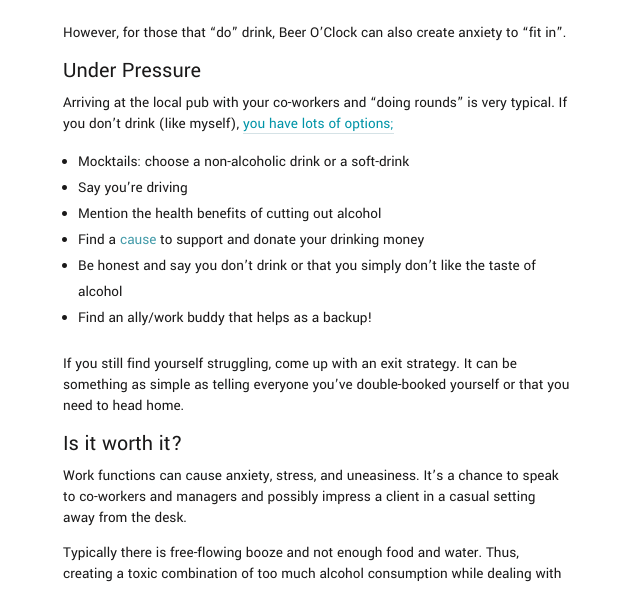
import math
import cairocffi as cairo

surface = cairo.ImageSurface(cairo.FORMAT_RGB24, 633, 593)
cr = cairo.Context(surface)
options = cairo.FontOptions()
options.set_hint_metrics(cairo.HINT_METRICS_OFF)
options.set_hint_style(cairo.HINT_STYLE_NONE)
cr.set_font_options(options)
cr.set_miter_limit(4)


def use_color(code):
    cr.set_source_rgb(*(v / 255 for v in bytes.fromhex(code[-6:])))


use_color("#ffffff")
cr.paint()
cr.select_font_face("Yantramanav")
cr.set_font_size(15)
use_color("#1a1919")
cr.move_to(63, 37)
cr.show_text("However, for those that “do” drink, Beer O’Clock can also create anxiety to “fit in”.")
cr.set_font_size(22)
cr.move_to(63, 77)
cr.show_text("Under Pressure")
cr.set_font_size(15)
cr.move_to(63, 107)
cr.show_text("Arriving at the local pub with your co-workers and “doing rounds” is very typical. If")
cr.move_to(63, 128)
cr.show_text("you don’t drink (like myself),")
use_color("#0094a7")
cr.move_to(243, 128)
cr.show_text("you have lots of options;")
use_color("#d5e2e6")
cr.rectangle(243, 133, 151, 1)
cr.fill()
use_color("#1a1919")
cr.arc(64.5, 161.5, 2.5, 0, 2 * math.pi)
cr.fill()
cr.move_to(78, 166)
cr.show_text("Mocktails: choose a non-alcoholic drink or a soft-drink")
cr.new_path()
cr.arc(64.5, 187.5, 2.5, 0, 2 * math.pi)
cr.fill()
cr.move_to(78, 192)
cr.show_text("Say you’re driving")
cr.new_path()
cr.arc(64.5, 213.5, 2.5, 0, 2 * math.pi)
cr.fill()
cr.move_to(78, 218)
cr.show_text("Mention the health benefits of cutting out alcohol")
cr.new_path()
cr.arc(64.5, 239.5, 2.5, 0, 2 * math.pi)
cr.fill()
cr.move_to(78, 244)
cr.show_text("Find a")
use_color("#449ba9")
cr.move_to(120, 244)
cr.show_text("cause")
use_color("#1a1919")
cr.move_to(160, 244)
cr.show_text("to support and donate your drinking money")
cr.new_path()
cr.arc(64.5, 265.5, 2.5, 0, 2 * math.pi)
cr.fill()
cr.move_to(78, 270)
cr.show_text("Be honest and say you don’t drink or that you simply don’t like the taste of")
cr.move_to(78, 296)
cr.show_text("alcohol")
cr.new_path()
cr.arc(64.5, 317.5, 2.5, 0, 2 * math.pi)
cr.fill()
cr.move_to(78, 322)
cr.show_text("Find an ally/work buddy that helps as a backup!")
cr.move_to(63, 368)
cr.show_text("If you still find yourself struggling, come up with an exit strategy. It can be")
cr.move_to(63, 389)
cr.show_text("something as simple as telling everyone you’ve double-booked yourself or that you")
cr.move_to(63, 410)
cr.show_text("need to head home.")
cr.set_font_size(22)
cr.move_to(63, 450)
cr.show_text("Is it worth it?")
cr.set_font_size(15)
cr.move_to(63, 480)
cr.show_text("Work functions can cause anxiety, stress, and uneasiness. It’s a chance to speak")
cr.move_to(63, 501)
cr.show_text("to co-workers and managers and possibly impress a client in a casual setting")
cr.move_to(63, 522)
cr.show_text("away from the desk.")
cr.move_to(63, 557)
cr.show_text("Typically there is free-flowing booze and not enough food and water. Thus,")
cr.move_to(63, 578)
cr.show_text("creating a toxic combination of too much alcohol consumption while dealing with")
surface.write_to_png("result.png")
